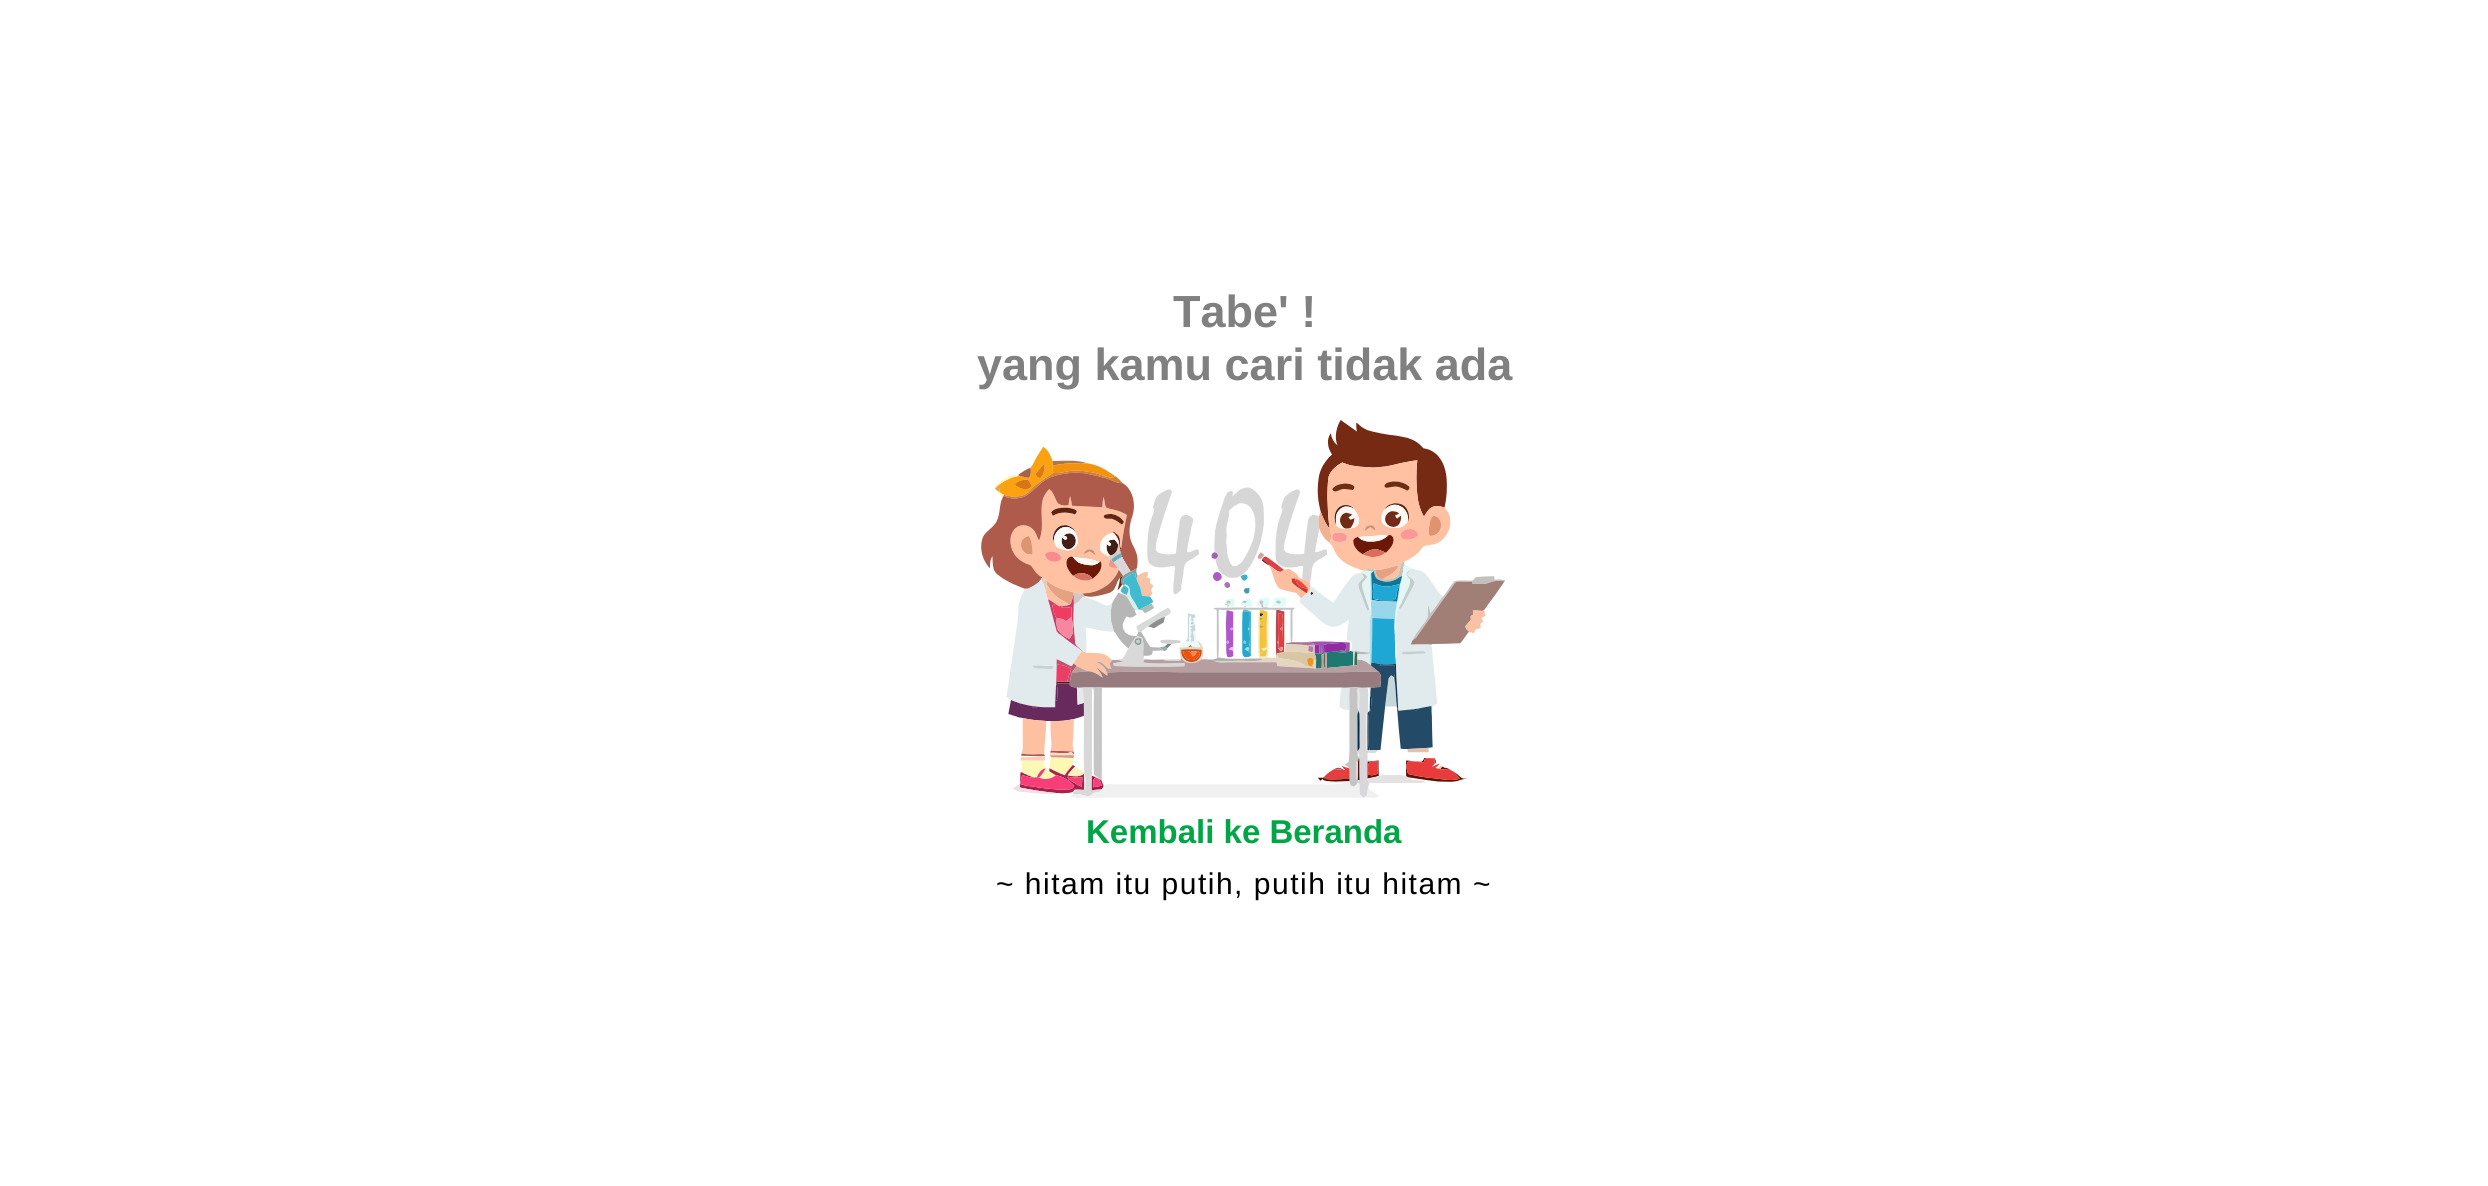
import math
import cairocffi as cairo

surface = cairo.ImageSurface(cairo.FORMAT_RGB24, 2488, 1186)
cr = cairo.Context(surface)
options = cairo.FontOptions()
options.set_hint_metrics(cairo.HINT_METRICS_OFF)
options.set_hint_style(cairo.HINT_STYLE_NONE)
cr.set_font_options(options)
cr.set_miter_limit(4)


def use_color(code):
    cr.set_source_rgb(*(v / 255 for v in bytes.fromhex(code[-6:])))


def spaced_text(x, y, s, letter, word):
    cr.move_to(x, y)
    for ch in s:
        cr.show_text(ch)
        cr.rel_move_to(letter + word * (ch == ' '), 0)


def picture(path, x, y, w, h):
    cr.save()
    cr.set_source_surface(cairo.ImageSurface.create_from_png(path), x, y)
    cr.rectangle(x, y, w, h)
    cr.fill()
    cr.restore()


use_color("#ffffff")
cr.paint()
cr.select_font_face("Liberation Sans", cairo.FONT_SLANT_NORMAL, cairo.FONT_WEIGHT_BOLD)
cr.set_font_size(45)
use_color("#808080")
cr.move_to(1173, 327)
cr.show_text("Tabe' !")
cr.move_to(977, 380)
cr.show_text("yang kamu cari tidak ada")
picture("img1.png", 981, 420, 524, 378)
cr.set_font_size(33)
use_color("#00a546")
cr.move_to(1086, 843)
cr.show_text("Kembali ke Beranda")
cr.select_font_face("Liberation Sans")
cr.set_font_size(30)
use_color("#000000")
spaced_text(996, 894, "~ hitam itu putih, putih itu hitam ~", 1.5, 0)
surface.write_to_png("result.png")
